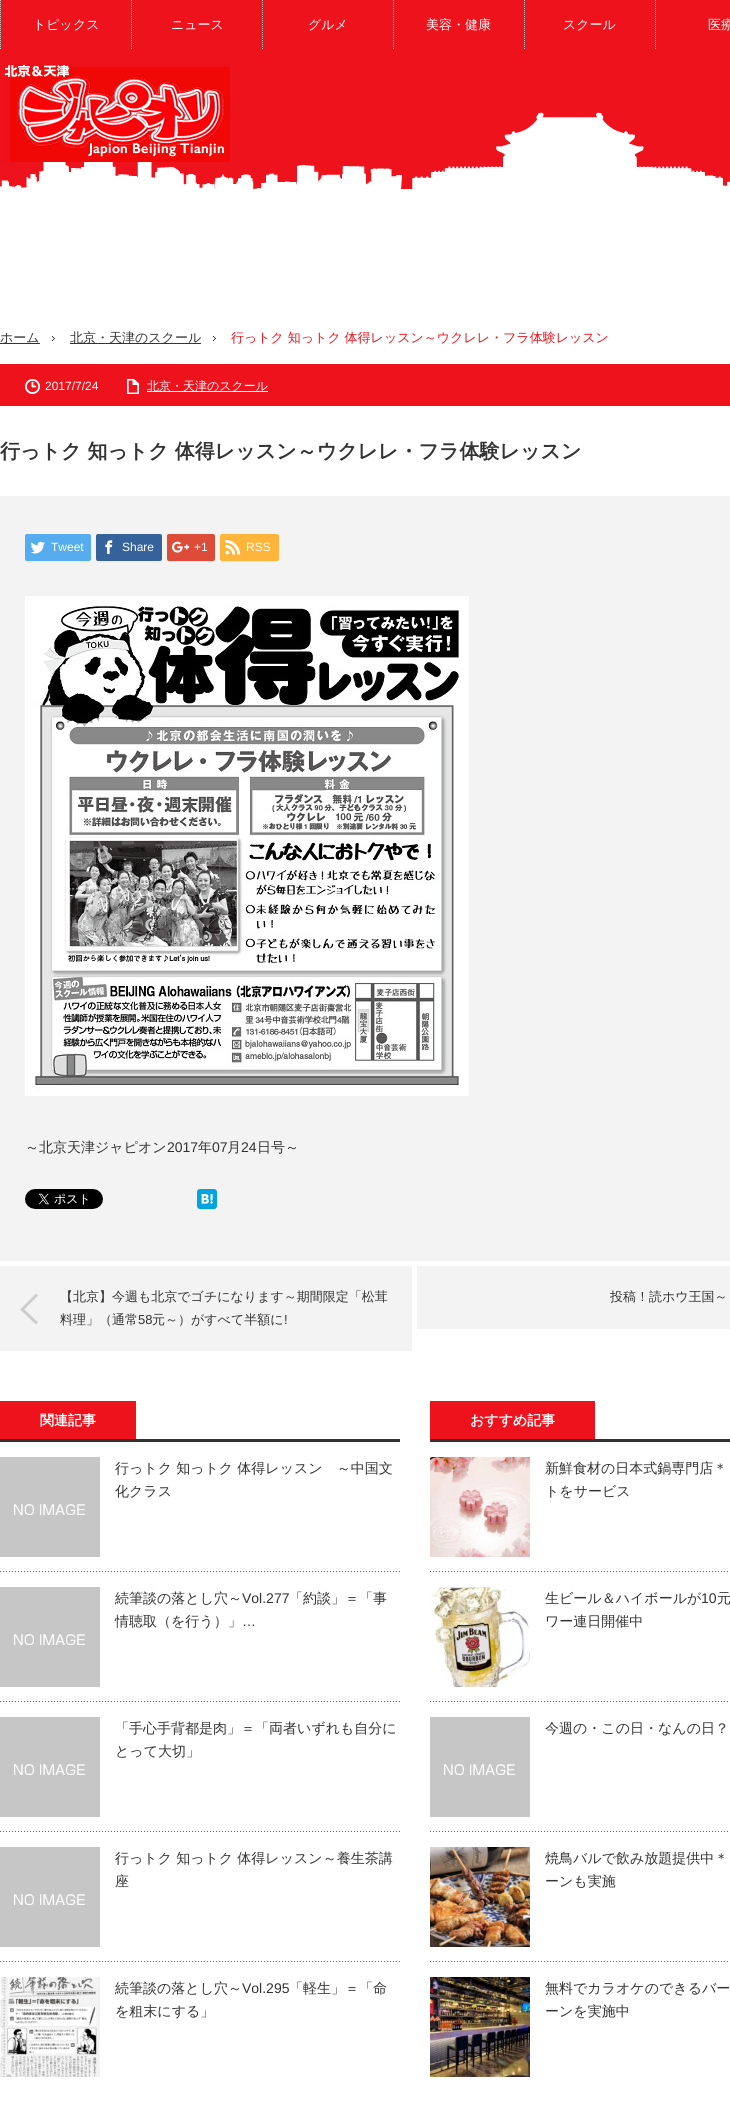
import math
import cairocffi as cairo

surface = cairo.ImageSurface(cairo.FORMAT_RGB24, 730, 2105)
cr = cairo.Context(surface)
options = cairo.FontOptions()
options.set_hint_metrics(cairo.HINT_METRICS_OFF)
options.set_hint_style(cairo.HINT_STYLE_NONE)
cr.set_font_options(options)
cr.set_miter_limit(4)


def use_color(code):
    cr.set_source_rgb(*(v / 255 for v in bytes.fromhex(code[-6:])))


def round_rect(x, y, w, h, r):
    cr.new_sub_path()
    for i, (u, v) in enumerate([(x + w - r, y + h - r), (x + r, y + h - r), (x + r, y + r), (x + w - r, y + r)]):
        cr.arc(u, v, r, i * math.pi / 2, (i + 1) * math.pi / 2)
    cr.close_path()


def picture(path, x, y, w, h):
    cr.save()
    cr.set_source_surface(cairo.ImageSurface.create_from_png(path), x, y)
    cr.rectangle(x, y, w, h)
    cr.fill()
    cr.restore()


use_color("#ffffff")
cr.paint()
use_color("#ee121c")
cr.rectangle(0, 0, 730, 50)
cr.fill()
cr.new_path()
cr.move_to(0.5, 0)
cr.line_to(0.5, 50)
use_color("#cccccc")
cr.set_line_width(1)
cr.set_dash([1, 1])
cr.stroke()
cr.select_font_face("WenQuanYi Zen Hei Medium")
cr.set_font_size(13)
use_color("#ffffff")
cr.move_to(33, 29)
cr.show_text("トピックス")
cr.new_path()
cr.move_to(131.5, 0)
cr.line_to(131.5, 50)
use_color("#cccccc")
cr.stroke()
use_color("#ffffff")
cr.move_to(171, 29)
cr.show_text("ニュース")
cr.new_path()
cr.move_to(262.5, 0)
cr.line_to(262.5, 50)
use_color("#cccccc")
cr.stroke()
use_color("#ffffff")
cr.move_to(308, 29)
cr.show_text("グルメ")
cr.new_path()
cr.move_to(393.5, 0)
cr.line_to(393.5, 50)
use_color("#cccccc")
cr.stroke()
use_color("#ffffff")
cr.move_to(426, 29)
cr.show_text("美容・健康")
cr.new_path()
cr.move_to(524.5, 0)
cr.line_to(524.5, 50)
use_color("#cccccc")
cr.stroke()
use_color("#ffffff")
cr.move_to(563, 29)
cr.show_text("スクール")
cr.new_path()
cr.move_to(655.5, 0)
cr.line_to(655.5, 50)
use_color("#cccccc")
cr.stroke()
use_color("#ffffff")
cr.move_to(708, 29)
cr.show_text("医療")
picture("img1.png", 0, 50, 730, 140)
picture("img2.png", 4, 64, 226, 98)
picture("img3.png", 52, 336, 3, 5)
use_color("#333333")
cr.rectangle(0, 343, 40, 1)
cr.fill()
cr.move_to(0, 342)
cr.show_text("ホーム")
picture("img3.png", 213, 336, 3, 5)
cr.rectangle(70, 343, 131, 1)
cr.fill()
cr.move_to(70, 342)
cr.show_text("北京・天津のスクール")
use_color("#ee121c")
cr.move_to(231, 342)
cr.show_text("行っトク 知っトク 体得レッスン～ウクレレ・フラ体験レッスン")
cr.rectangle(0, 364, 730, 42)
cr.fill()
picture("img4.png", 25, 379, 15, 15)
cr.select_font_face("Liberation Sans")
cr.set_font_size(12)
use_color("#ffffff")
cr.move_to(45, 390)
cr.show_text("2017/7/24")
picture("img5.png", 127, 379, 12, 15)
cr.rectangle(147, 391, 121, 1)
cr.fill()
cr.select_font_face("WenQuanYi Zen Hei Medium")
cr.move_to(147, 390)
cr.show_text("北京・天津のスクール")
cr.select_font_face("WenQuanYi Zen Hei", cairo.FONT_SLANT_NORMAL, cairo.FONT_WEIGHT_BOLD)
cr.set_font_size(20)
use_color("#333333")
cr.move_to(0, 458)
cr.show_text("行っトク 知っトク 体得レッスン～ウクレレ・フラ体験レッスン")
use_color("#f3f3f3")
cr.rectangle(0, 496, 730, 765)
cr.fill()
use_color("#ececec")
cr.new_path()
cr.move_to(25, 559)
cr.curve_to(25, 565, 34, 562, 37, 562)
cr.line_to(79, 562)
cr.curve_to(82, 562, 91, 565, 91, 559)
cr.curve_to(91, 563, 83, 561, 79, 561)
cr.line_to(26, 561)
cr.close_path()
cr.fill()
use_color("#55acee")
round_rect(25, 534, 66, 27, 2)
cr.fill()
picture("img6.png", 30, 541, 15, 13)
cr.select_font_face("Liberation Sans")
cr.set_font_size(12)
use_color("#ffffff")
cr.move_to(51, 551)
cr.show_text("Tweet")
use_color("#ececec")
cr.new_path()
cr.move_to(96, 559)
cr.curve_to(96, 565, 105, 562, 108, 562)
cr.line_to(150, 562)
cr.curve_to(153, 562, 162, 565, 162, 559)
cr.line_to(161, 561)
cr.line_to(108, 561)
cr.curve_to(104, 561, 96, 563, 96, 559)
cr.close_path()
cr.fill()
use_color("#35629a")
round_rect(96, 534, 66, 27, 2)
cr.fill()
picture("img7.png", 105, 540, 8, 14)
use_color("#ffffff")
cr.move_to(122, 551)
cr.show_text("Share")
use_color("#ececec")
cr.new_path()
cr.move_to(167, 559)
cr.curve_to(167, 564, 172, 562, 176, 562)
cr.line_to(206, 562)
cr.curve_to(210, 562, 215, 564, 215, 559)
cr.curve_to(215, 560, 214, 561, 213, 561)
cr.line_to(169, 561)
cr.curve_to(168, 561, 167, 560, 167, 559)
cr.close_path()
cr.fill()
use_color("#dd4b39")
round_rect(167, 534, 48, 27, 2)
cr.fill()
picture("img8.png", 172, 541, 18, 12)
use_color("#ffffff")
cr.move_to(194, 551)
cr.show_text("+1")
use_color("#ececec")
cr.new_path()
cr.move_to(220, 559)
cr.curve_to(220, 564, 227, 562, 231, 562)
cr.line_to(268, 562)
cr.curve_to(272, 562, 279, 564, 279, 559)
cr.line_to(278, 561)
cr.line_to(221, 561)
cr.close_path()
cr.fill()
use_color("#ffb53c")
round_rect(220, 534, 59, 27, 2)
cr.fill()
picture("img9.png", 225, 539, 16, 16)
use_color("#ffffff")
cr.move_to(246, 551)
cr.show_text("RSS")
picture("img10.png", 25, 596, 444, 500)
cr.select_font_face("WenQuanYi Zen Hei Medium")
cr.set_font_size(14)
use_color("#333333")
cr.move_to(25, 1152)
cr.show_text("～北京天津ジャピオン")
cr.select_font_face("Liberation Sans")
cr.move_to(167, 1152)
cr.show_text("2017")
cr.select_font_face("WenQuanYi Zen Hei Medium")
cr.move_to(198, 1152)
cr.show_text("年")
cr.select_font_face("Liberation Sans")
cr.move_to(212, 1152)
cr.show_text("07")
cr.select_font_face("WenQuanYi Zen Hei Medium")
cr.move_to(227, 1152)
cr.show_text("月")
cr.select_font_face("Liberation Sans")
cr.move_to(241, 1152)
cr.show_text("24")
cr.select_font_face("WenQuanYi Zen Hei Medium")
cr.move_to(257, 1152)
cr.show_text("日号～")
picture("img11.png", 25, 1189, 78, 20)
picture("img12.png", 197, 1189, 20, 20)
use_color("#f3f3f3")
cr.rectangle(0, 1266, 412, 85)
cr.fill()
picture("img13.png", 20, 1294, 18, 30)
cr.set_font_size(13)
use_color("#333333")
cr.move_to(60, 1301)
cr.show_text("【北京】今週も北京でゴチになります～期間限定「松茸")
cr.move_to(60, 1324)
cr.show_text("料理」（通常")
cr.select_font_face("Liberation Sans")
cr.move_to(138, 1324)
cr.show_text("58")
cr.select_font_face("WenQuanYi Zen Hei Medium")
cr.move_to(152, 1324)
cr.show_text("元～）がすべて半額に")
cr.select_font_face("Liberation Sans")
cr.move_to(284, 1324)
cr.show_text("!")
use_color("#f3f3f3")
cr.rectangle(417, 1266, 313, 63)
cr.fill()
cr.select_font_face("WenQuanYi Zen Hei Medium")
use_color("#333333")
cr.move_to(610, 1301)
cr.show_text("投稿！読ホウ王国～")
use_color("#ee121c")
cr.rectangle(0, 1401, 136, 38)
cr.fill()
cr.select_font_face("WenQuanYi Zen Hei", cairo.FONT_SLANT_NORMAL, cairo.FONT_WEIGHT_BOLD)
cr.set_font_size(14)
use_color("#ffffff")
cr.move_to(40, 1425)
cr.show_text("関連記事")
use_color("#333333")
cr.rectangle(0, 1439, 400, 3)
cr.fill()
picture("img14.png", 0, 1571, 400, 1)
picture("img15.png", 0, 1457, 100, 100)
cr.select_font_face("WenQuanYi Zen Hei Medium")
cr.move_to(115, 1473)
cr.show_text("行っトク 知っトク 体得レッスン　～中国文")
cr.move_to(115, 1496)
cr.show_text("化クラス")
picture("img14.png", 0, 1701, 400, 1)
picture("img15.png", 0, 1587, 100, 100)
cr.move_to(115, 1603)
cr.show_text("続筆談の落とし穴～")
cr.select_font_face("Liberation Sans")
cr.move_to(242, 1603)
cr.show_text("Vol.277")
cr.select_font_face("WenQuanYi Zen Hei Medium")
cr.move_to(289, 1603)
cr.show_text("「約談」＝「事")
cr.move_to(115, 1626)
cr.show_text("情聴取（を行う）」")
cr.select_font_face("Liberation Sans")
cr.move_to(242, 1626)
cr.show_text("…")
picture("img14.png", 0, 1831, 400, 1)
picture("img15.png", 0, 1717, 100, 100)
cr.select_font_face("WenQuanYi Zen Hei Medium")
cr.move_to(115, 1733)
cr.show_text("「手心手背都是肉」＝「両者いずれも自分に")
cr.move_to(115, 1756)
cr.show_text("とって大切」")
picture("img14.png", 0, 1961, 400, 1)
picture("img15.png", 0, 1847, 100, 100)
cr.move_to(115, 1863)
cr.show_text("行っトク 知っトク 体得レッスン～養生茶講")
cr.move_to(115, 1886)
cr.show_text("座")
picture("img16.png", 0, 1977, 100, 100)
cr.move_to(115, 1993)
cr.show_text("続筆談の落とし穴～")
cr.select_font_face("Liberation Sans")
cr.move_to(242, 1993)
cr.show_text("Vol.295")
cr.select_font_face("WenQuanYi Zen Hei Medium")
cr.move_to(289, 1993)
cr.show_text("「軽生」＝「命")
cr.move_to(115, 2016)
cr.show_text("を粗末にする」")
use_color("#ee121c")
cr.rectangle(430, 1401, 165, 38)
cr.fill()
cr.select_font_face("WenQuanYi Zen Hei", cairo.FONT_SLANT_NORMAL, cairo.FONT_WEIGHT_BOLD)
use_color("#ffffff")
cr.move_to(470, 1425)
cr.show_text("おすすめ記事")
use_color("#333333")
cr.rectangle(430, 1439, 300, 3)
cr.fill()
picture("img17.png", 430, 1571, 298, 1)
picture("img18.png", 430, 1457, 100, 100)
cr.select_font_face("WenQuanYi Zen Hei Medium")
cr.move_to(545, 1473)
cr.show_text("新鮮食材の日本式鍋専門店＊")
cr.move_to(545, 1496)
cr.show_text("トをサービス")
picture("img17.png", 430, 1701, 298, 1)
picture("img19.png", 430, 1587, 100, 100)
cr.move_to(545, 1603)
cr.show_text("生ビール＆ハイボールが")
cr.select_font_face("Liberation Sans")
cr.move_to(701, 1603)
cr.show_text("10")
cr.select_font_face("WenQuanYi Zen Hei Medium")
cr.move_to(717, 1603)
cr.show_text("元")
cr.move_to(545, 1626)
cr.show_text("ワー連日開催中")
picture("img17.png", 430, 1831, 298, 1)
picture("img15.png", 430, 1717, 100, 100)
cr.move_to(545, 1733)
cr.show_text("今週の・この日・なんの日？")
picture("img17.png", 430, 1961, 298, 1)
picture("img20.png", 430, 1847, 100, 100)
cr.move_to(545, 1863)
cr.show_text("焼鳥バルで飲み放題提供中＊")
cr.move_to(545, 1886)
cr.show_text("ーンも実施")
picture("img21.png", 430, 1977, 100, 100)
cr.move_to(545, 1993)
cr.show_text("無料でカラオケのできるバー")
cr.move_to(545, 2016)
cr.show_text("ーンを実施中")
surface.write_to_png("result.png")
